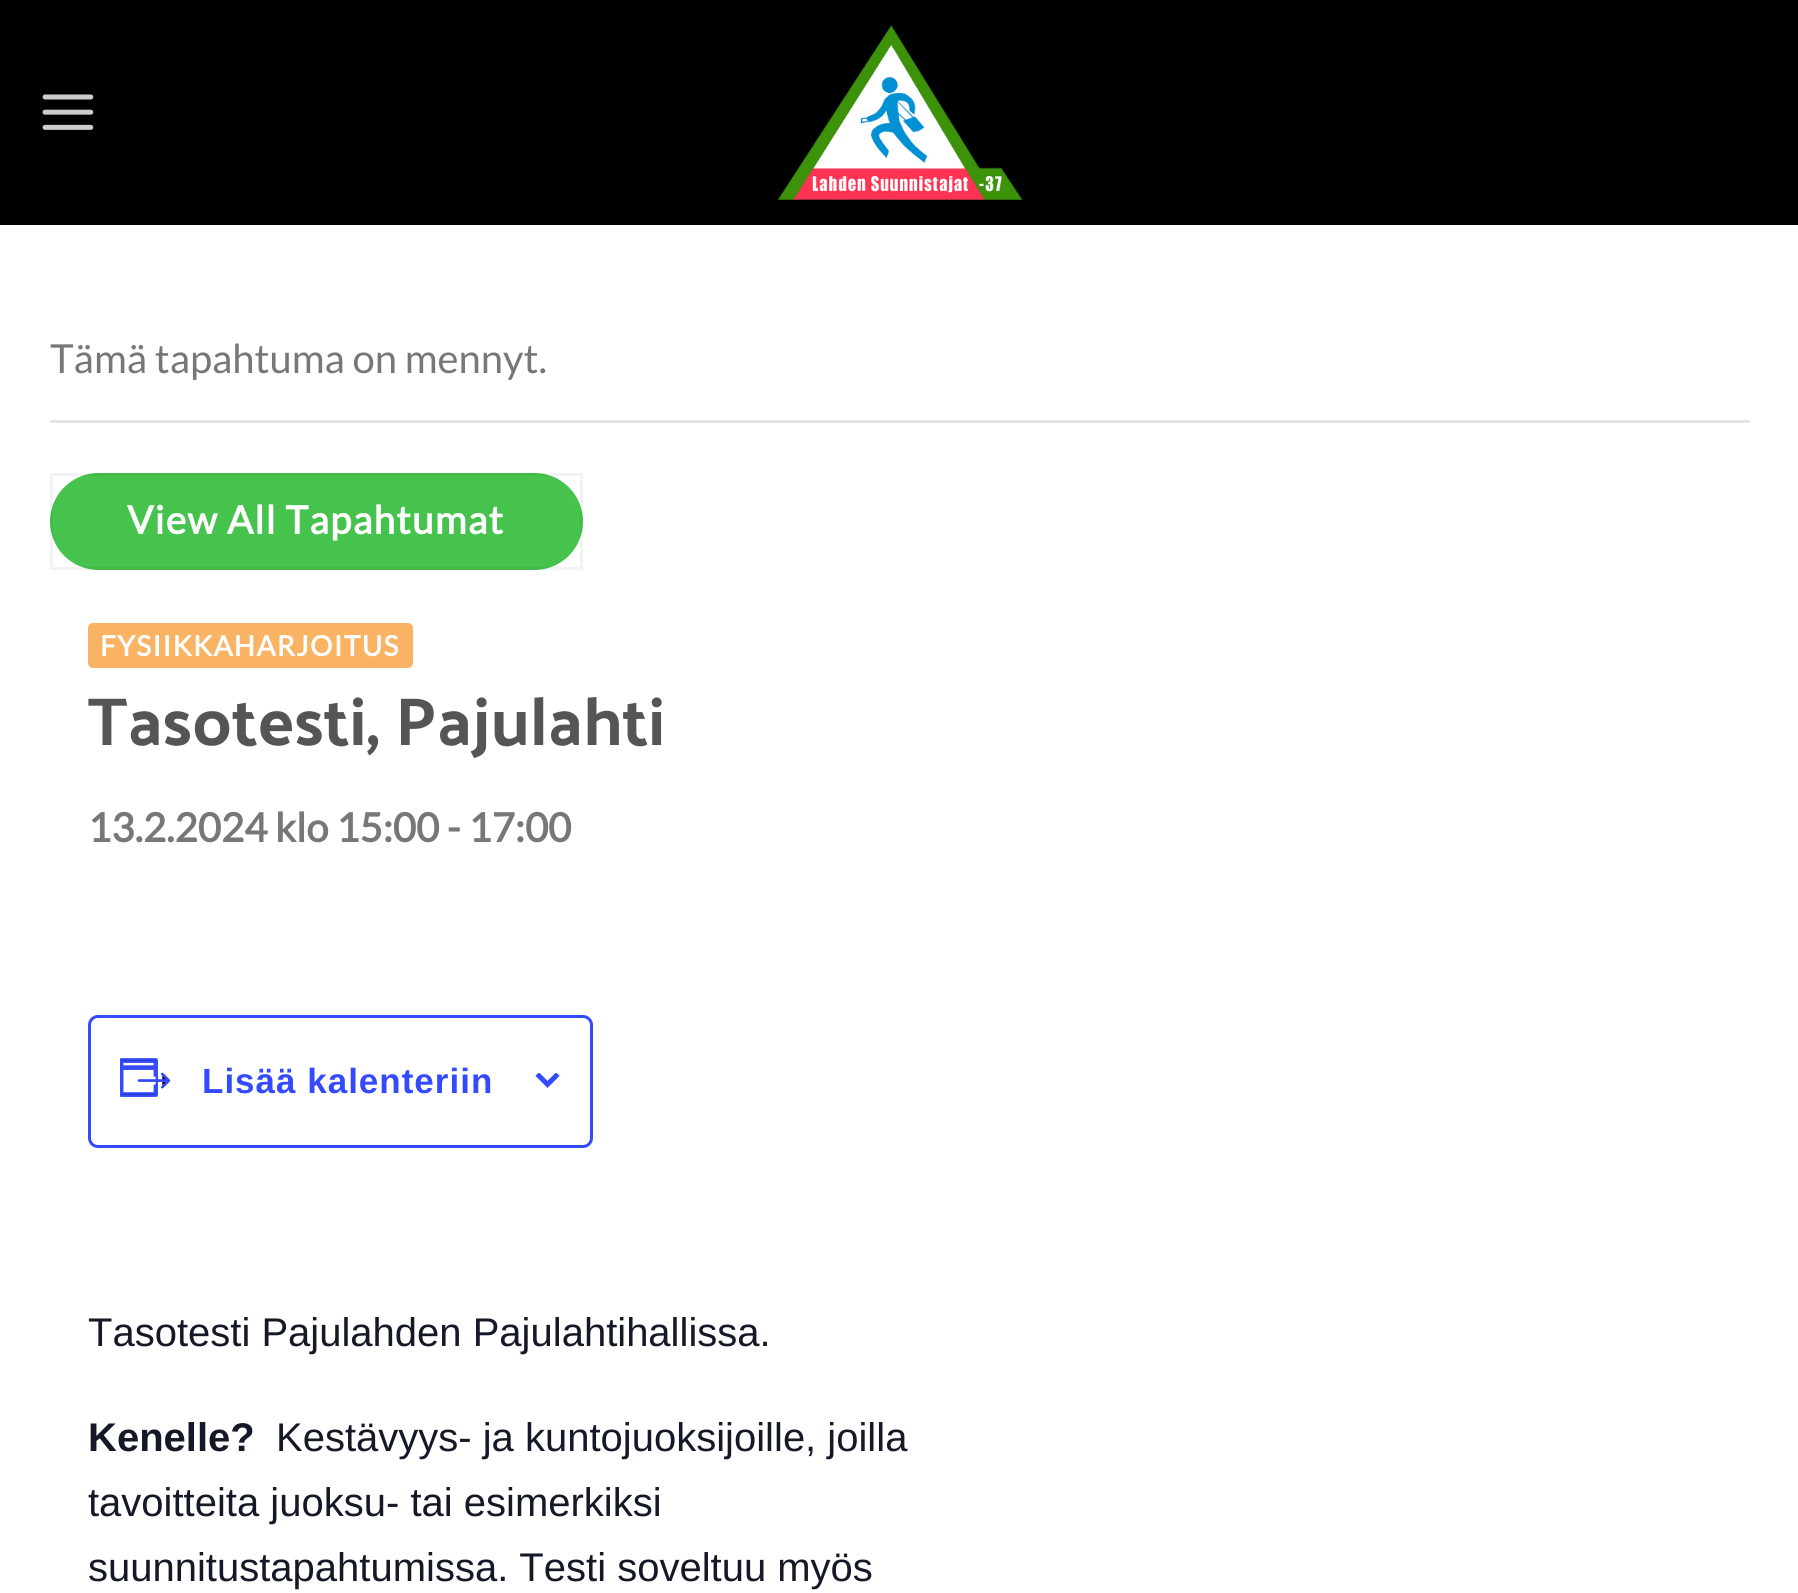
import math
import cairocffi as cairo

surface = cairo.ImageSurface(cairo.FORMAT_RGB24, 1798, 1593)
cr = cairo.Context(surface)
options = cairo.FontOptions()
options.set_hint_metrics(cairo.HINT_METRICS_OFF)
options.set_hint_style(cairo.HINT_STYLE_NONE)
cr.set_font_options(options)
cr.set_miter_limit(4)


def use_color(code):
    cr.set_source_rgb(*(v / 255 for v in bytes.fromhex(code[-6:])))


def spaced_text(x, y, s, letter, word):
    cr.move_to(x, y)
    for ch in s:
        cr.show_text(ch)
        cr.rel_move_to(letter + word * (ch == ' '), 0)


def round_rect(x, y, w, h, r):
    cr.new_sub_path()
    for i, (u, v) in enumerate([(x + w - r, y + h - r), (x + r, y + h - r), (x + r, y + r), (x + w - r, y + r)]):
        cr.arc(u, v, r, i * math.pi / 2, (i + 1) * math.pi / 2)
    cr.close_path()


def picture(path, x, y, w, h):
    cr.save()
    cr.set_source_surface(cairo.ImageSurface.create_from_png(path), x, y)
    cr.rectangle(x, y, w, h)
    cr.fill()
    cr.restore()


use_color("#ffffff")
cr.paint()
use_color("#000000")
cr.rectangle(0, 0, 1798, 225)
cr.fill()
picture("img1.png", 42, 94, 52, 36)
picture("img2.png", 777, 25, 246, 175)
use_color("#e4e4e4")
cr.rectangle(50, 420, 1700, 3)
cr.fill()
cr.select_font_face("Lato")
cr.set_font_size(40)
use_color("#777777")
cr.move_to(50, 373)
cr.show_text("Tämä tapahtuma on mennyt.")
use_color("#46c34c")
round_rect(50, 473, 533, 97, 48.5)
cr.fill()
cr.rectangle(51.5, 474.5, 530, 94)
cr.set_source_rgba(0, 0, 0, 0.05)
cr.set_line_width(3)
cr.stroke()
cr.select_font_face("Lato", cairo.FONT_SLANT_NORMAL, cairo.FONT_WEIGHT_BOLD)
cr.set_font_size(38.75)
use_color("#ffffff")
spaced_text(127, 534, "View All Tapahtumat", 1.2, 0)
use_color("#f9b362")
round_rect(88, 623, 325, 45, 5)
cr.fill()
cr.set_font_size(28)
use_color("#ffffff")
spaced_text(100, 656, "FYSIIKKAHARJOITUS", 1.4, 0)
cr.select_font_face("Palanquin Dark")
cr.set_font_size(68)
use_color("#555555")
cr.move_to(88, 745)
cr.show_text("Tasotesti, Pajulahti")
cr.select_font_face("Lato", cairo.FONT_SLANT_NORMAL, cairo.FONT_WEIGHT_BOLD)
cr.set_font_size(40)
use_color("#777777")
cr.move_to(88, 842)
cr.show_text("13.2.2024 klo 15:00 - 17:00")
round_rect(89.5, 1016.5, 502, 130, 8.5)
use_color("#334aff")
cr.stroke()
picture("img3.png", 120, 1058, 51, 39)
cr.select_font_face("Liberation Sans", cairo.FONT_SLANT_NORMAL, cairo.FONT_WEIGHT_BOLD)
cr.set_font_size(35)
spaced_text(202, 1093, "Lisää kalenteriin", 1, 0)
picture("img4.png", 535, 1073, 25, 15)
cr.select_font_face("Liberation Sans")
cr.set_font_size(40)
use_color("#141827")
cr.move_to(88, 1346)
cr.show_text("Tasotesti Pajulahden Pajulahtihallissa.")
cr.select_font_face("Liberation Sans", cairo.FONT_SLANT_NORMAL, cairo.FONT_WEIGHT_BOLD)
cr.move_to(88, 1451)
cr.show_text("Kenelle?")
cr.select_font_face("Liberation Sans")
cr.move_to(276, 1451)
cr.show_text("Kestävyys- ja kuntojuoksijoille, joilla")
cr.move_to(88, 1516)
cr.show_text("tavoitteita juoksu- tai esimerkiksi")
cr.move_to(88, 1581)
cr.show_text("suunnitustapahtumissa. Testi soveltuu myös")
surface.write_to_png("result.png")
